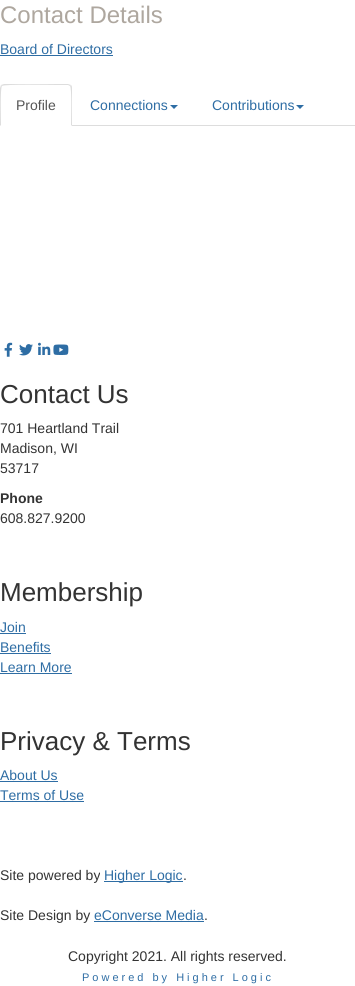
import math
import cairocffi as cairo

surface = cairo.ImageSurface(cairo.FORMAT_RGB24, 355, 986)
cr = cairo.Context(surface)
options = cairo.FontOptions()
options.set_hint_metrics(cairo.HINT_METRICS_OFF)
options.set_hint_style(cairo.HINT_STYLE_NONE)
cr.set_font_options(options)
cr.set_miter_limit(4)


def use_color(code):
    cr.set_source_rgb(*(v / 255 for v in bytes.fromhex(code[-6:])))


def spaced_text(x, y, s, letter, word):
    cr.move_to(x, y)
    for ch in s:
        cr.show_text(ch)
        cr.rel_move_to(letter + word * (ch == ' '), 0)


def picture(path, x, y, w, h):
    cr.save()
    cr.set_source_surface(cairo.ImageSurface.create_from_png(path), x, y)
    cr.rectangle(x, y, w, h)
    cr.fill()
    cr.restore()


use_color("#ffffff")
cr.paint()
cr.select_font_face("Liberation Sans")
cr.set_font_size(24)
use_color("#aea79f")
cr.move_to(0, 23)
cr.show_text("Contact Details")
cr.set_font_size(14)
use_color("#2e6da4")
cr.move_to(0, 54)
cr.show_text("Board of Directors")
cr.rectangle(0, 55, 113, 1)
cr.fill()
use_color("#dddddd")
cr.rectangle(72, 125, 283, 1)
cr.fill()
cr.new_path()
cr.move_to(4, 84)
cr.line_to(1, 85)
cr.line_to(2, 86)
cr.curve_to(4, 84, 51, 85, 57, 85)
cr.line_to(68, 85)
cr.line_to(70, 86)
cr.line_to(71, 85)
cr.line_to(68, 84)
cr.close_path()
cr.fill()
cr.new_path()
cr.move_to(72, 126)
cr.line_to(72, 88)
cr.curve_to(72, 87, 72, 86, 71, 85)
cr.line_to(70, 86)
cr.curve_to(72, 88, 71, 120, 71, 125)
cr.close_path()
cr.fill()
cr.new_path()
cr.move_to(0, 126)
cr.line_to(1, 125)
cr.curve_to(1, 120, 0, 88, 2, 86)
cr.line_to(1, 85)
cr.line_to(0, 88)
cr.close_path()
cr.fill()
use_color("#555555")
cr.move_to(16, 110)
cr.show_text("Profile")
use_color("#2e6da4")
cr.move_to(90, 110)
cr.show_text("Connections")
cr.new_path()
cr.move_to(170, 105)
cr.line_to(178, 105)
cr.line_to(174, 109)
cr.close_path()
cr.fill()
cr.move_to(212, 110)
cr.show_text("Contributions")
cr.new_path()
cr.move_to(296, 105)
cr.line_to(304, 105)
cr.line_to(300, 109)
cr.close_path()
cr.fill()
picture("img1.png", 4, 342, 9, 15)
picture("img2.png", 19, 344, 14, 12)
picture("img3.png", 38, 342, 13, 13)
picture("img4.png", 53, 344, 16, 11)
cr.set_font_size(26)
use_color("#333333")
cr.move_to(0, 403)
cr.show_text("Contact Us")
cr.set_font_size(14)
cr.move_to(0, 433)
cr.show_text("701 Heartland Trail")
cr.move_to(0, 453)
cr.show_text("Madison, WI")
cr.move_to(0, 473)
cr.show_text("53717")
cr.select_font_face("Liberation Sans", cairo.FONT_SLANT_NORMAL, cairo.FONT_WEIGHT_BOLD)
cr.move_to(0, 503)
cr.show_text("Phone")
cr.select_font_face("Liberation Sans")
cr.move_to(0, 523)
cr.show_text("608.827.9200")
cr.set_font_size(26)
cr.move_to(0, 601)
cr.show_text("Membership")
cr.set_font_size(14)
use_color("#2e6da4")
cr.move_to(0, 632)
cr.show_text("Join")
cr.rectangle(0, 633, 26, 1)
cr.fill()
cr.move_to(0, 652)
cr.show_text("Benefits")
cr.rectangle(0, 653, 51, 1)
cr.fill()
cr.move_to(0, 672)
cr.show_text("Learn More")
cr.rectangle(0, 673, 72, 1)
cr.fill()
cr.set_font_size(26)
use_color("#333333")
cr.move_to(0, 750)
cr.show_text("Privacy & Terms")
cr.set_font_size(14)
use_color("#2e6da4")
cr.move_to(0, 780)
cr.show_text("About Us")
cr.rectangle(0, 781, 58, 1)
cr.fill()
cr.move_to(0, 800)
cr.show_text("Terms of Use")
cr.rectangle(0, 801, 84, 1)
cr.fill()
use_color("#333333")
cr.move_to(0, 880)
cr.show_text("Site powered by")
use_color("#2e6da4")
cr.rectangle(104, 881, 79, 1)
cr.fill()
cr.move_to(104, 880)
cr.show_text("Higher Logic")
use_color("#333333")
cr.move_to(183, 880)
cr.show_text(".")
cr.move_to(0, 920)
cr.show_text("Site Design by")
use_color("#2e6da4")
cr.move_to(94, 920)
cr.show_text("eConverse Media")
cr.rectangle(94, 921, 110, 1)
cr.fill()
use_color("#333333")
cr.move_to(204, 920)
cr.show_text(".")
cr.move_to(68, 961)
cr.show_text("Copyright 2021. All rights reserved.")
cr.set_font_size(11)
use_color("#2e6da4")
spaced_text(82, 981, "Powered by Higher Logic", 3, 0)
surface.write_to_png("result.png")
